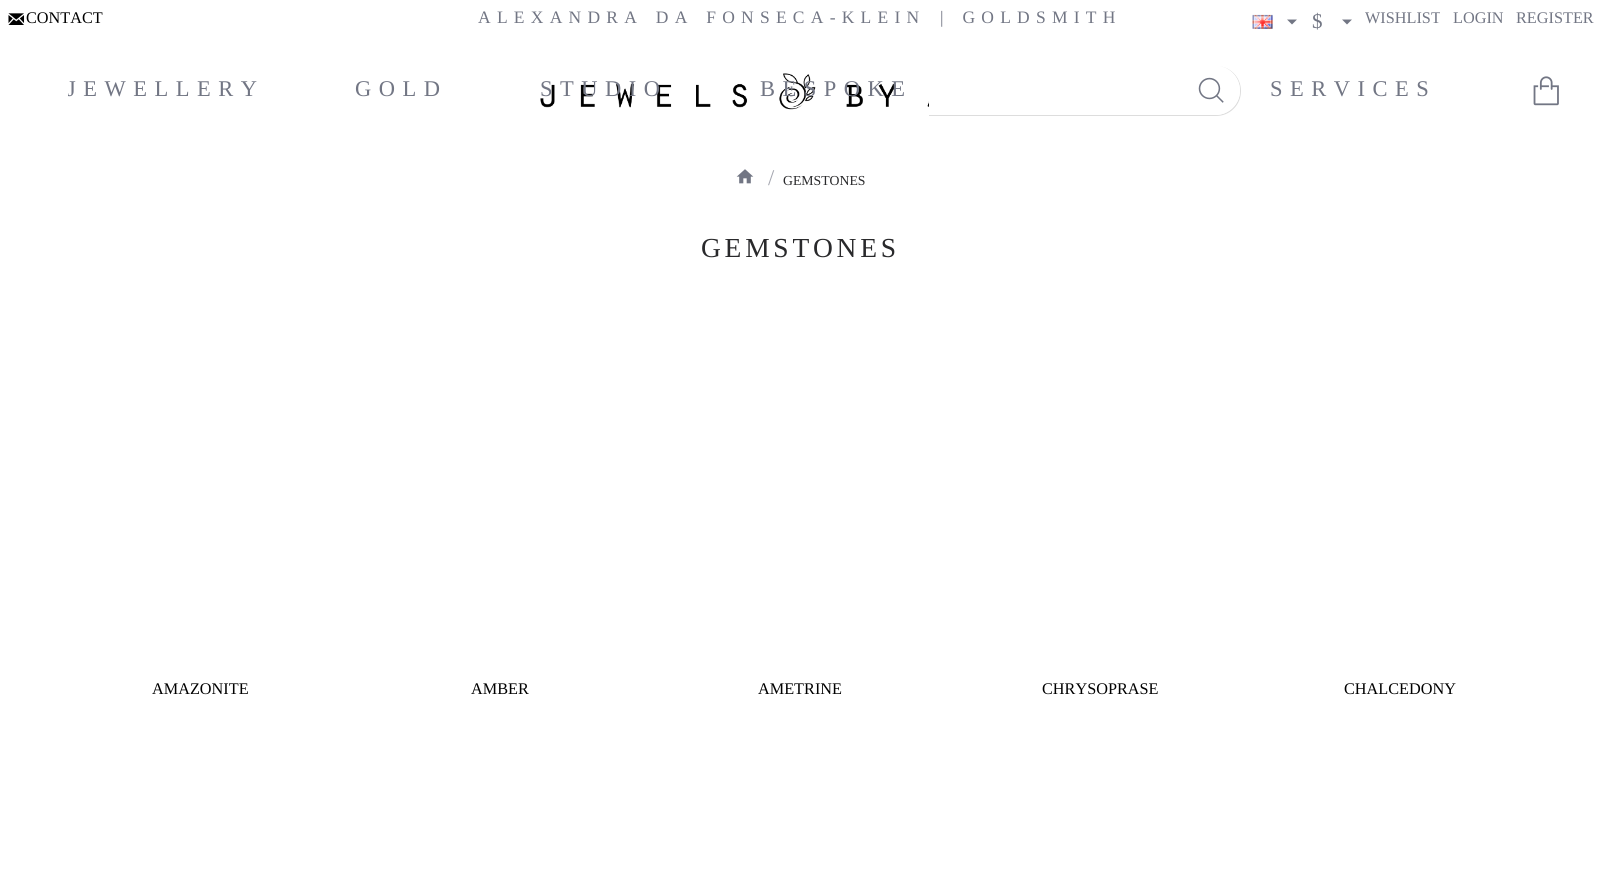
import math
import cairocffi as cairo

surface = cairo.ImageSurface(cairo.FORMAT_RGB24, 1600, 896)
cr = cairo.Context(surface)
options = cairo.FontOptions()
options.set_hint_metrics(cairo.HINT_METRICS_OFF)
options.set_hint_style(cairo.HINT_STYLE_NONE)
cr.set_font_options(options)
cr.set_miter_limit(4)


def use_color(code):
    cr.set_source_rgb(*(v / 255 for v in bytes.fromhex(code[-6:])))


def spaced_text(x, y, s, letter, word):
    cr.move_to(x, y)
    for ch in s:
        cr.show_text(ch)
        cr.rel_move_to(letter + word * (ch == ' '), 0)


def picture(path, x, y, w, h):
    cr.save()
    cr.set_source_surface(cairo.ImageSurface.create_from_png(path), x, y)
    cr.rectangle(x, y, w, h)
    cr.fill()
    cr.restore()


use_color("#ffffff")
cr.paint()
picture("img1.png", 8, 13, 17, 12)
cr.select_font_face("Liberation Serif")
cr.set_font_size(16.25)
use_color("#000000")
cr.move_to(26, 23)
cr.show_text("CONTACT")
cr.set_font_size(17.5)
use_color("#727684")
spaced_text(478, 23, "ALEXANDRA DA FONSECA-KLEIN", 6.25, 2)
spaced_text(940, 23, "| GOLDSMITH", 6.25, 2)
picture("img2.png", 1252, 14, 21, 15)
cr.new_path()
cr.move_to(1287, 19.5)
cr.line_to(1297, 19.5)
cr.line_to(1292, 24.5)
cr.close_path()
cr.fill()
cr.set_font_size(21)
cr.move_to(1312, 28)
cr.show_text("$")
cr.new_path()
cr.move_to(1342, 19.5)
cr.line_to(1352, 19.5)
cr.line_to(1347, 24.5)
cr.close_path()
cr.fill()
cr.save()
cr.rectangle(1365, 6, 75, 25)
cr.clip()
cr.set_font_size(16.25)
cr.move_to(1365, 23)
cr.show_text("WISHLIST")
cr.restore()
cr.set_font_size(16.25)
cr.move_to(1453, 23)
cr.show_text("LOGIN")
cr.move_to(1516, 23)
cr.show_text("REGISTER")
picture("img3.png", 540, 73, 389, 37)
use_color("#dddddd")
cr.set_fill_rule(cairo.FILL_RULE_EVEN_ODD)
cr.new_path()
cr.move_to(929, 66)
cr.line_to(1216, 66)
cr.curve_to(1230, 66, 1241, 77, 1241, 91)
cr.curve_to(1241, 105, 1230, 116, 1216, 116)
cr.line_to(929, 116)
cr.close_path()
cr.move_to(929, 66)
cr.line_to(1216, 66)
cr.curve_to(1229, 66, 1240, 77, 1240, 91)
cr.curve_to(1240, 104, 1229, 115, 1216, 115)
cr.line_to(929, 115)
cr.close_path()
cr.fill()
use_color("#ffffff")
cr.new_path()
cr.move_to(1184, 66)
cr.line_to(1215.5, 66)
cr.curve_to(1229, 66, 1240, 77, 1240, 90.5)
cr.curve_to(1240, 104, 1229, 115, 1215.5, 115)
cr.line_to(1184, 115)
cr.close_path()
cr.fill()
picture("img4.png", 1198, 77, 26, 26)
picture("img5.png", 1533, 76, 26, 30)
cr.save()
cr.set_fill_rule(cairo.FILL_RULE_WINDING)
cr.rectangle(68, 74, 202, 32)
cr.clip()
cr.set_font_size(22.5)
use_color("#727684")
spaced_text(67, 96, "JEWELLERY", 7.5, 0)
cr.restore()
cr.set_font_size(22.5)
use_color("#727684")
spaced_text(355, 96, "GOLD", 7.5, 0)
spaced_text(540, 96, "STUDIO", 7.5, 0)
spaced_text(760, 96, "BESPOKE", 7.5, 0)
spaced_text(1270, 96, "SERVICES", 7.5, 0)
picture("img6.png", 736, 169, 18, 15)
use_color("#a5a7b0")
cr.move_to(768, 185)
cr.show_text("/")
cr.set_font_size(13.75)
use_color("#29292b")
cr.move_to(783, 185)
cr.show_text("GEMSTONES")
cr.set_font_size(27.5)
spaced_text(701, 257, "GEMSTONES", 3.75, 0)
cr.set_font_size(16.25)
use_color("#000000")
cr.move_to(152, 694)
cr.show_text("AMAZONITE")
cr.move_to(471, 694)
cr.show_text("AMBER")
cr.move_to(758, 694)
cr.show_text("AMETRINE")
cr.move_to(1042, 694)
cr.show_text("CHRYSOPRASE")
cr.move_to(1344, 694)
cr.show_text("CHALCEDONY")
surface.write_to_png("result.png")
